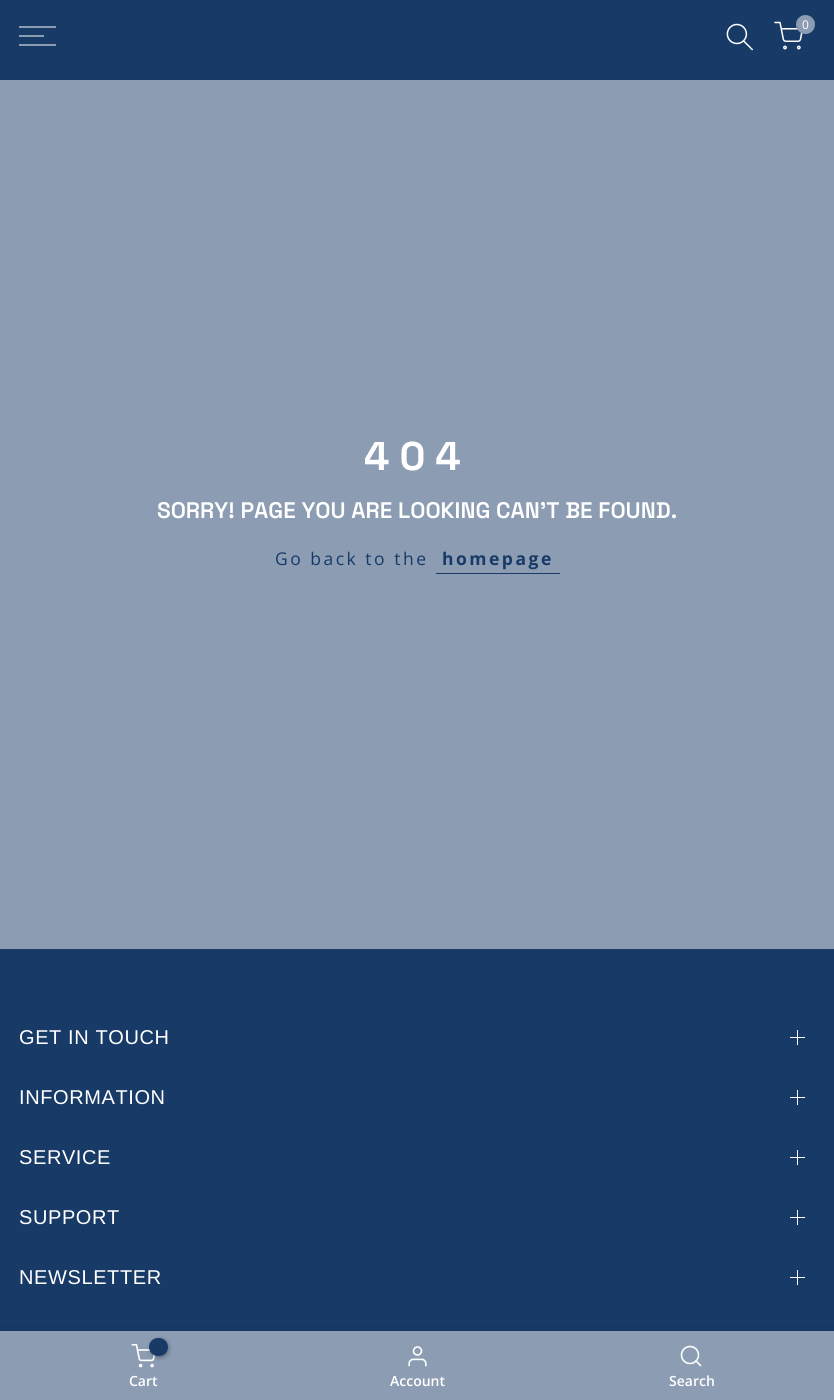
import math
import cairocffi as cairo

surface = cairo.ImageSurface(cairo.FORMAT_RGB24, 834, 1400)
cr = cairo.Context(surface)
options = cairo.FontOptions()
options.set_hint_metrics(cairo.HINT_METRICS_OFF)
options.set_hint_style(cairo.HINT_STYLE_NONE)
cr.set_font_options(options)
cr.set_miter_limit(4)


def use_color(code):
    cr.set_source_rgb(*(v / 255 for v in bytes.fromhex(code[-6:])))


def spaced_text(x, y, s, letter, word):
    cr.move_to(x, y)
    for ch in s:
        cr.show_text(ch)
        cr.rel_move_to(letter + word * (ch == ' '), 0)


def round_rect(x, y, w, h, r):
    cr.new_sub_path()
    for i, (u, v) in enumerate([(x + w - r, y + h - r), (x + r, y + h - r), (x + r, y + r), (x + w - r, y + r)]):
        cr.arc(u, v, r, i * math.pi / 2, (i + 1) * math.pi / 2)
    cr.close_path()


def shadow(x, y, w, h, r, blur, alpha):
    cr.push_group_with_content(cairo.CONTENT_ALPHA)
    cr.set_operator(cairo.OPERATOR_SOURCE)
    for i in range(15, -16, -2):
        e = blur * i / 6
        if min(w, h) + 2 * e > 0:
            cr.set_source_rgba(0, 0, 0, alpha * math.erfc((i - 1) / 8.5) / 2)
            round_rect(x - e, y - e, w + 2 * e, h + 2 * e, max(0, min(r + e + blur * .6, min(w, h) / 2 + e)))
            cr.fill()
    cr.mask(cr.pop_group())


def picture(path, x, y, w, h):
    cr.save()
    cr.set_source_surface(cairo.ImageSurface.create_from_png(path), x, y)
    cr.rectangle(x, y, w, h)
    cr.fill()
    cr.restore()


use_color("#183a67")
cr.paint()
picture("img1.png", 726, 23, 27, 28)
picture("img2.png", 774, 21, 29, 29)
use_color("#8b9cb3")
cr.arc(805.5, 24.5, 9.5, 0, 2 * math.pi)
cr.fill()
cr.select_font_face("Open Sans")
cr.set_font_size(12)
use_color("#ffffff")
cr.move_to(802, 29)
cr.show_text("0")
use_color("#8b9cb3")
cr.rectangle(19, 26, 37, 2)
cr.fill()
cr.rectangle(19, 35, 25, 2)
cr.fill()
cr.rectangle(19, 44, 37, 2)
cr.fill()
cr.rectangle(0, 80, 834, 869)
cr.fill()
cr.select_font_face("Space Grotesk", cairo.FONT_SLANT_NORMAL, cairo.FONT_WEIGHT_BOLD)
cr.set_font_size(40)
use_color("#ffffff")
spaced_text(364, 470, "404", 10, 0)
cr.select_font_face("Space Grotesk SemiBold")
cr.set_font_size(22.5)
cr.move_to(157, 518)
cr.show_text("SORRY! PAGE YOU ARE LOOKING CAN'T BE FOUND.")
cr.select_font_face("Open Sans")
cr.set_font_size(17.5)
use_color("#183a67")
spaced_text(275, 565, "Go back to the", 2.5, 0)
cr.select_font_face("Open Sans", cairo.FONT_SLANT_NORMAL, cairo.FONT_WEIGHT_BOLD)
spaced_text(442, 565, "homepage", 2.5, 0)
cr.rectangle(436, 573, 124, 1)
cr.fill()
cr.select_font_face("Liberation Sans")
cr.set_font_size(20)
use_color("#ffffff")
spaced_text(19, 1044, "GET IN TOUCH", 0.6, 0)
cr.rectangle(797, 1030, 1, 15)
cr.fill()
cr.rectangle(790, 1037, 15, 1)
cr.fill()
spaced_text(19, 1104, "INFORMATION", 0.6, 0)
cr.rectangle(797, 1090, 1, 15)
cr.fill()
cr.rectangle(790, 1097, 15, 1)
cr.fill()
spaced_text(19, 1164, "SERVICE", 0.6, 0)
cr.rectangle(797, 1150, 1, 15)
cr.fill()
cr.rectangle(790, 1157, 15, 1)
cr.fill()
spaced_text(19, 1224, "SUPPORT", 0.6, 0)
cr.rectangle(797, 1210, 1, 15)
cr.fill()
cr.rectangle(790, 1217, 15, 1)
cr.fill()
spaced_text(19, 1284, "NEWSLETTER", 0.6, 0)
cr.rectangle(797, 1270, 1, 15)
cr.fill()
cr.rectangle(790, 1277, 15, 1)
cr.fill()
use_color("#000000")
shadow(0, 1331, 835, 69, 0, 5.5, 0.12)
use_color("#8b9cb3")
cr.rectangle(0, 1331, 834, 69)
cr.fill()
picture("img3.png", 131, 1344, 24, 24)
use_color("#000000")
shadow(150, 1339, 19, 19, 9.5, 2, 0.3)
use_color("#183a67")
round_rect(149, 1338, 19, 18, 9)
cr.fill()
cr.select_font_face("Open Sans SemiBold")
cr.set_font_size(14)
use_color("#ffffff")
cr.move_to(129, 1386)
cr.show_text("Cart")
picture("img4.png", 408, 1346, 19, 21)
cr.move_to(390, 1386)
cr.show_text("Account")
cr.new_path()
cr.arc(690, 1355, 8.5, 0, 2 * math.pi)
cr.set_line_width(1.6)
cr.stroke()
cr.new_path()
cr.move_to(700.5, 1365.5)
cr.line_to(696, 1361)
cr.set_line_cap(cairo.LINE_CAP_ROUND)
cr.set_line_join(cairo.LINE_JOIN_ROUND)
cr.stroke()
cr.move_to(669, 1386)
cr.show_text("Search")
surface.write_to_png("result.png")
